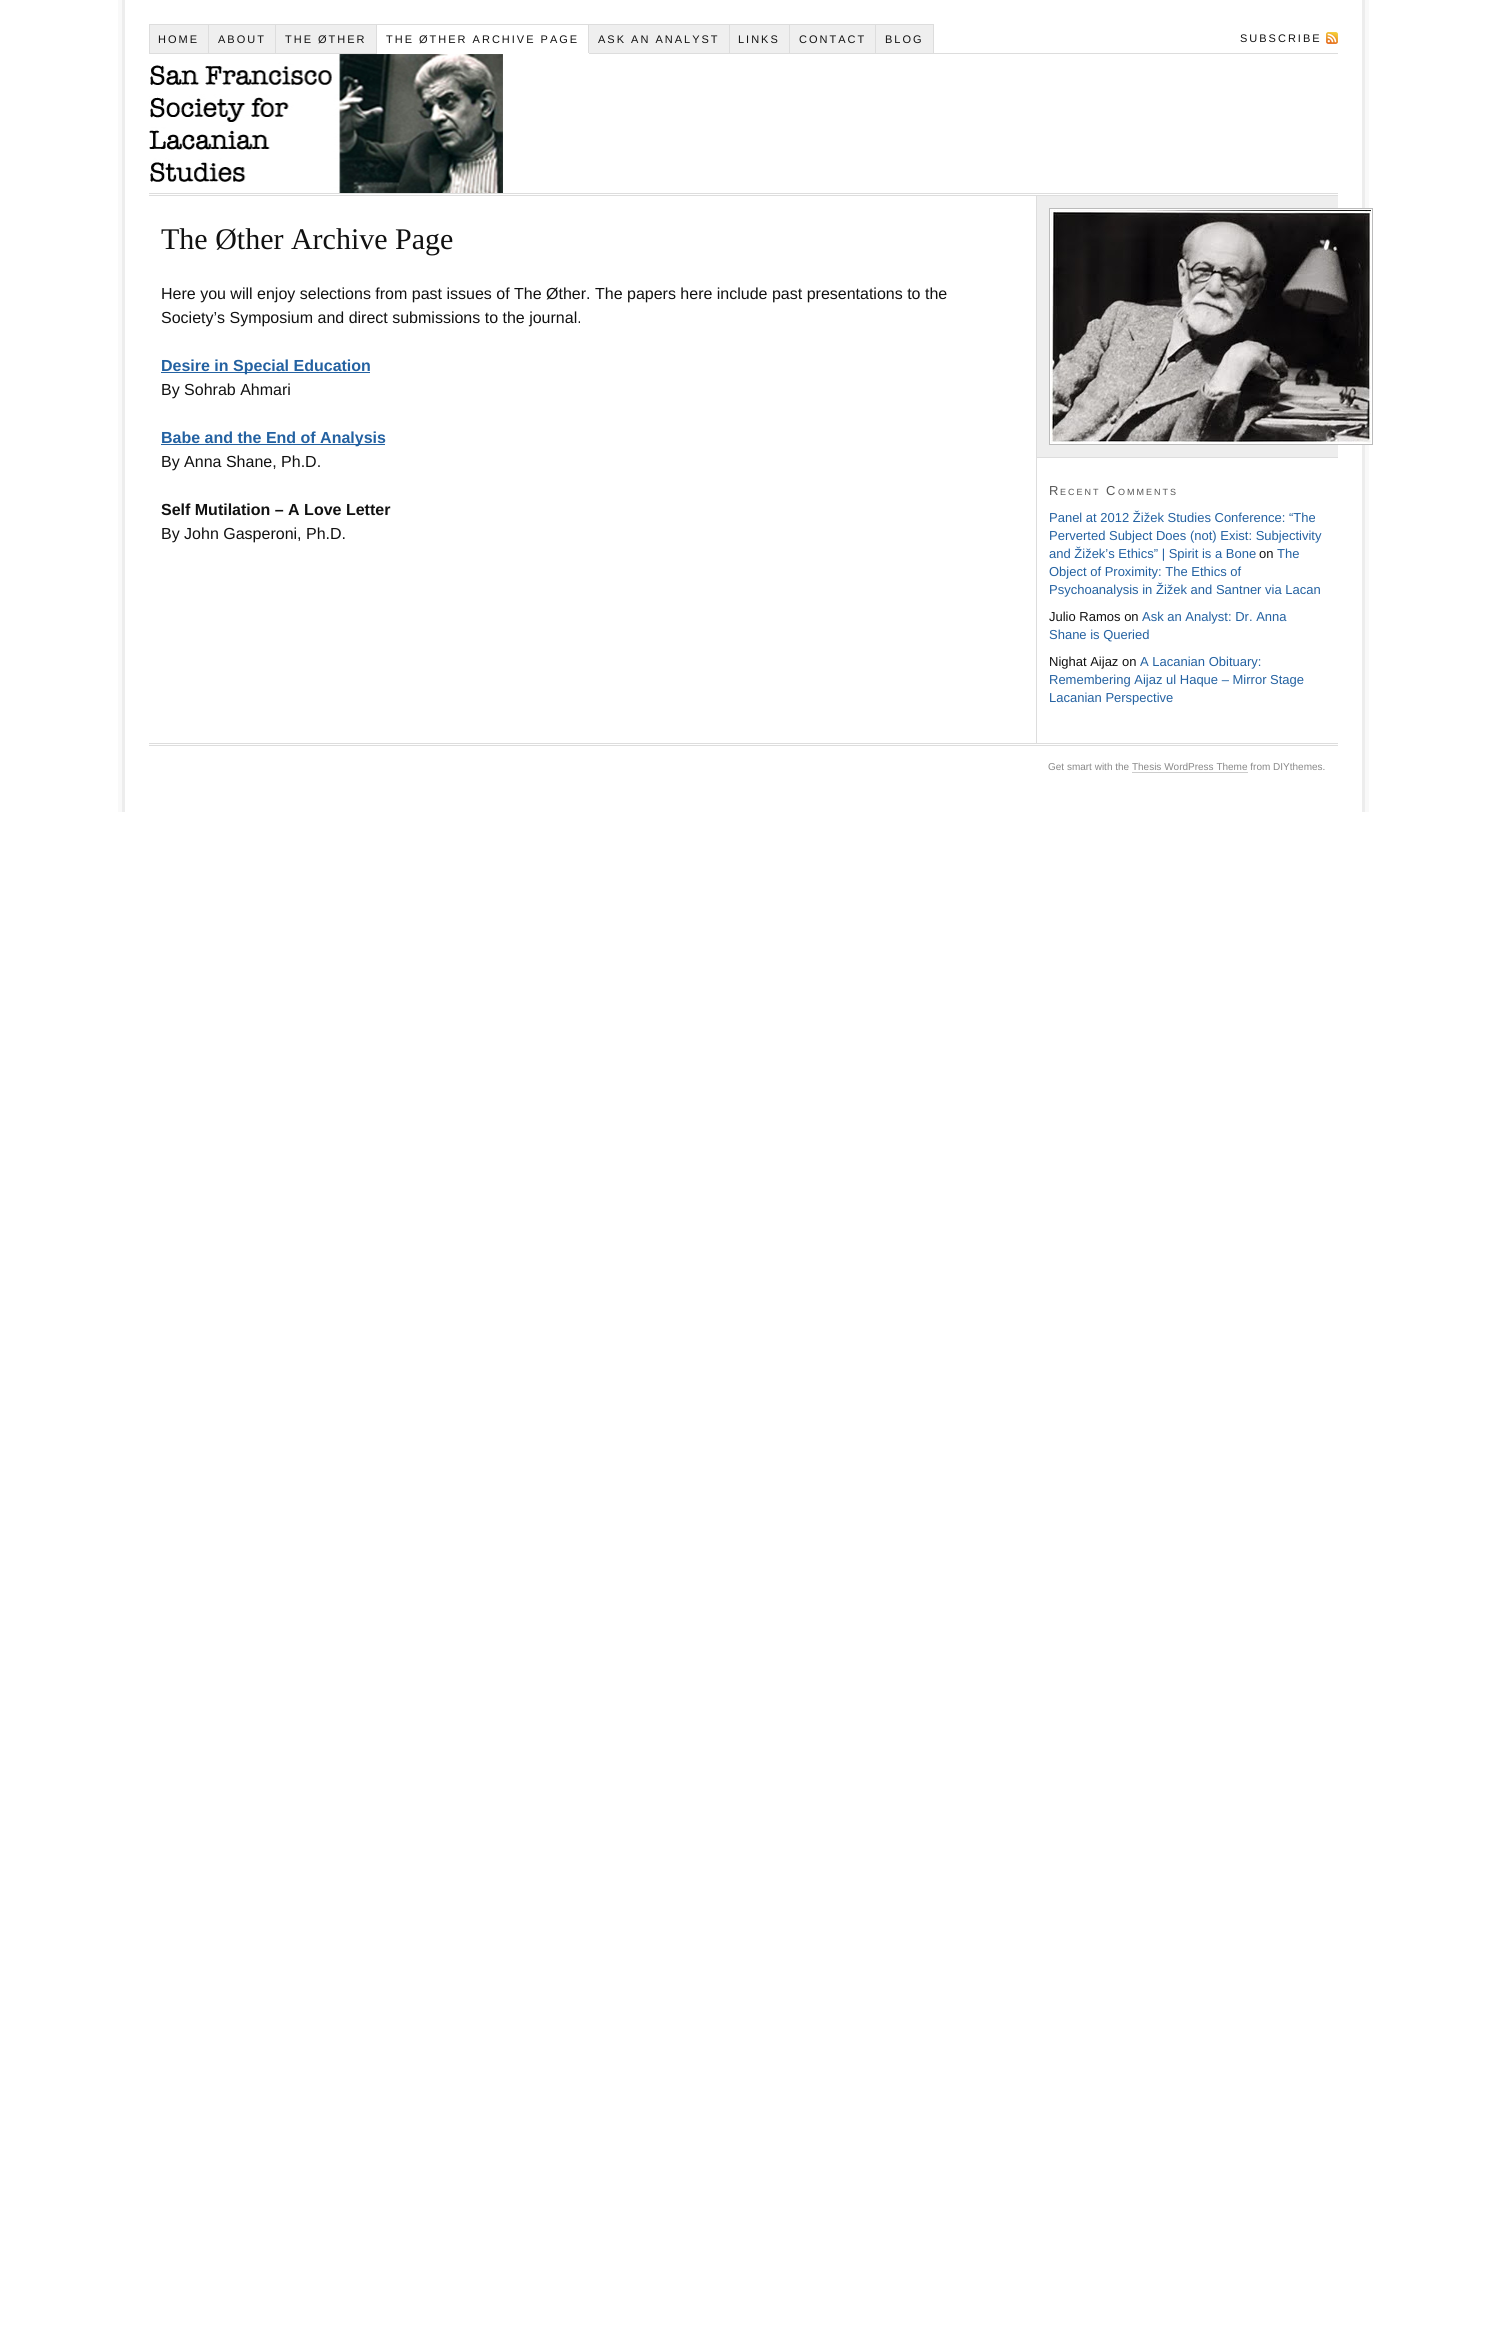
import math
import cairocffi as cairo

surface = cairo.ImageSurface(cairo.FORMAT_RGB24, 1486, 2344)
cr = cairo.Context(surface)
options = cairo.FontOptions()
options.set_hint_metrics(cairo.HINT_METRICS_OFF)
options.set_hint_style(cairo.HINT_STYLE_NONE)
cr.set_font_options(options)
cr.set_miter_limit(4)


def use_color(code):
    cr.set_source_rgb(*(v / 255 for v in bytes.fromhex(code[-6:])))


def spaced_text(x, y, s, letter, word):
    cr.move_to(x, y)
    for ch in s:
        cr.show_text(ch)
        cr.rel_move_to(letter + word * (ch == ' '), 0)


def picture(path, x, y, w, h):
    cr.save()
    cr.set_source_surface(cairo.ImageSurface.create_from_png(path), x, y)
    cr.rectangle(x, y, w, h)
    cr.fill()
    cr.restore()


use_color("#ffffff")
cr.paint()
use_color("#ededed")
cr.rectangle(122, 0, 1243, 812)
cr.fill()
use_color("#f9f9f9")
cr.rectangle(1365, 0, 4, 812)
cr.fill()
cr.rectangle(118, 0, 4, 812)
cr.fill()
use_color("#ffffff")
cr.rectangle(125, 0, 1237, 812)
cr.fill()
use_color("#dddddd")
cr.rectangle(149, 53, 1189, 1)
cr.fill()
cr.rectangle(149, 24, 1, 30)
cr.fill()
use_color("#efefef")
cr.rectangle(150, 25, 58, 28)
cr.fill()
use_color("#dddddd")
cr.rectangle(150, 24, 784, 1)
cr.fill()
cr.rectangle(208, 24, 1, 30)
cr.fill()
cr.select_font_face("Liberation Sans")
cr.set_font_size(11)
use_color("#111111")
spaced_text(158, 43, "HOME", 2, 0)
use_color("#efefef")
cr.rectangle(209, 25, 66, 28)
cr.fill()
use_color("#dddddd")
cr.rectangle(275, 24, 1, 30)
cr.fill()
use_color("#111111")
spaced_text(218, 43, "ABOUT", 2, 0)
use_color("#efefef")
cr.rectangle(276, 25, 100, 28)
cr.fill()
use_color("#dddddd")
cr.rectangle(376, 24, 1, 30)
cr.fill()
use_color("#111111")
spaced_text(285, 43, "THE ØTHER", 2, 0)
use_color("#dddddd")
cr.rectangle(588, 24, 1, 30)
cr.fill()
use_color("#ffffff")
cr.rectangle(377, 53, 212, 1)
cr.fill()
use_color("#111111")
spaced_text(386, 43, "THE ØTHER ARCHIVE PAGE", 2, 0)
use_color("#efefef")
cr.rectangle(589, 25, 140, 28)
cr.fill()
use_color("#dddddd")
cr.rectangle(729, 24, 1, 30)
cr.fill()
use_color("#111111")
spaced_text(598, 43, "ASK AN ANALYST", 2, 0)
use_color("#efefef")
cr.rectangle(730, 25, 59, 28)
cr.fill()
use_color("#dddddd")
cr.rectangle(789, 24, 1, 30)
cr.fill()
use_color("#111111")
spaced_text(738, 43, "LINKS", 2, 0)
use_color("#efefef")
cr.rectangle(790, 25, 85, 28)
cr.fill()
use_color("#dddddd")
cr.rectangle(875, 24, 1, 30)
cr.fill()
use_color("#111111")
spaced_text(799, 43, "CONTACT", 2, 0)
use_color("#efefef")
cr.rectangle(876, 25, 57, 28)
cr.fill()
use_color("#dddddd")
cr.rectangle(933, 24, 1, 30)
cr.fill()
use_color("#111111")
spaced_text(885, 43, "BLOG", 2, 0)
picture("img1.png", 1326, 32, 12, 12)
spaced_text(1240, 42, "SUBSCRIBE", 2, 0)
picture("img2.png", 149, 54, 354, 139)
use_color("#dddddd")
cr.rectangle(149, 193, 1189, 1)
cr.fill()
cr.rectangle(149, 195, 1189, 1)
cr.fill()
cr.rectangle(1036, 196, 1, 547)
cr.fill()
cr.select_font_face("Liberation Serif")
cr.set_font_size(30)
use_color("#111111")
cr.move_to(161, 249)
cr.show_text("The Øther Archive Page")
cr.select_font_face("Liberation Sans")
cr.set_font_size(16)
cr.move_to(161, 299)
cr.show_text("Here you will enjoy selections from past issues of The Øther. The papers here include past presentations to the")
cr.move_to(161, 323)
cr.show_text("Society’s Symposium and direct submissions to the journal.")
use_color("#2361a1")
cr.rectangle(161, 372, 209, 1)
cr.fill()
cr.select_font_face("Liberation Sans", cairo.FONT_SLANT_NORMAL, cairo.FONT_WEIGHT_BOLD)
cr.move_to(161, 371)
cr.show_text("Desire in Special Education")
cr.select_font_face("Liberation Sans")
use_color("#111111")
cr.move_to(161, 395)
cr.show_text("By Sohrab Ahmari")
use_color("#2361a1")
cr.rectangle(161, 444, 224, 1)
cr.fill()
cr.select_font_face("Liberation Sans", cairo.FONT_SLANT_NORMAL, cairo.FONT_WEIGHT_BOLD)
cr.move_to(161, 443)
cr.show_text("Babe and the End of Analysis")
cr.select_font_face("Liberation Sans")
use_color("#111111")
cr.move_to(161, 467)
cr.show_text("By Anna Shane, Ph.D.")
cr.select_font_face("Liberation Sans", cairo.FONT_SLANT_NORMAL, cairo.FONT_WEIGHT_BOLD)
cr.move_to(161, 515)
cr.show_text("Self Mutilation – A Love Letter")
cr.select_font_face("Liberation Sans")
cr.move_to(161, 539)
cr.show_text("By John Gasperoni, Ph.D.")
use_color("#eeeeee")
cr.rectangle(1037, 196, 301, 261)
cr.fill()
use_color("#dddddd")
cr.rectangle(1037, 457, 301, 1)
cr.fill()
use_color("#ffffff")
cr.rectangle(1050, 209, 319, 235)
cr.fill()
cr.rectangle(1049.5, 208.5, 323, 236)
use_color("#bbbbbb")
cr.set_line_width(1)
cr.stroke()
picture("img3.png", 1051, 210, 320, 233)
cr.set_font_size(13)
use_color("#555555")
spaced_text(1049, 495, "R", 2, 0)
cr.set_font_size(9)
spaced_text(1060, 495, "ECENT", 2, 0)
cr.set_font_size(13)
spaced_text(1106, 495, "C", 2, 0)
cr.set_font_size(9)
spaced_text(1118, 495, "OMMENTS", 2, 0)
cr.set_font_size(13)
use_color("#2361a1")
cr.move_to(1049, 522)
cr.show_text("Panel at 2012 Žižek Studies Conference: “The")
cr.move_to(1049, 540)
cr.show_text("Perverted Subject Does (not) Exist: Subjectivity")
cr.move_to(1049, 558)
cr.show_text("and Žižek’s Ethics” | Spirit is a Bone")
use_color("#111111")
cr.move_to(1259, 558)
cr.show_text("on")
use_color("#2361a1")
cr.move_to(1277, 558)
cr.show_text("The")
cr.move_to(1049, 576)
cr.show_text("Object of Proximity: The Ethics of")
cr.move_to(1049, 594)
cr.show_text("Psychoanalysis in Žižek and Santner via Lacan")
use_color("#111111")
cr.move_to(1049, 621)
cr.show_text("Julio Ramos on")
use_color("#2361a1")
cr.move_to(1142, 621)
cr.show_text("Ask an Analyst: Dr. Anna")
cr.move_to(1049, 639)
cr.show_text("Shane is Queried")
use_color("#111111")
cr.move_to(1049, 666)
cr.show_text("Nighat Aijaz on")
use_color("#2361a1")
cr.move_to(1140, 666)
cr.show_text("A Lacanian Obituary:")
cr.move_to(1049, 684)
cr.show_text("Remembering Aijaz ul Haque – Mirror Stage")
cr.move_to(1049, 702)
cr.show_text("Lacanian Perspective")
use_color("#dddddd")
cr.rectangle(149, 743, 1189, 1)
cr.fill()
cr.rectangle(149, 745, 1189, 1)
cr.fill()
cr.set_font_size(10)
use_color("#888888")
cr.move_to(1048, 770)
cr.show_text("Get smart with the Thesis WordPress Theme from DIYthemes.")
use_color("#cccccc")
cr.rectangle(1132, 772, 116, 1)
cr.fill()
surface.write_to_png("result.png")
